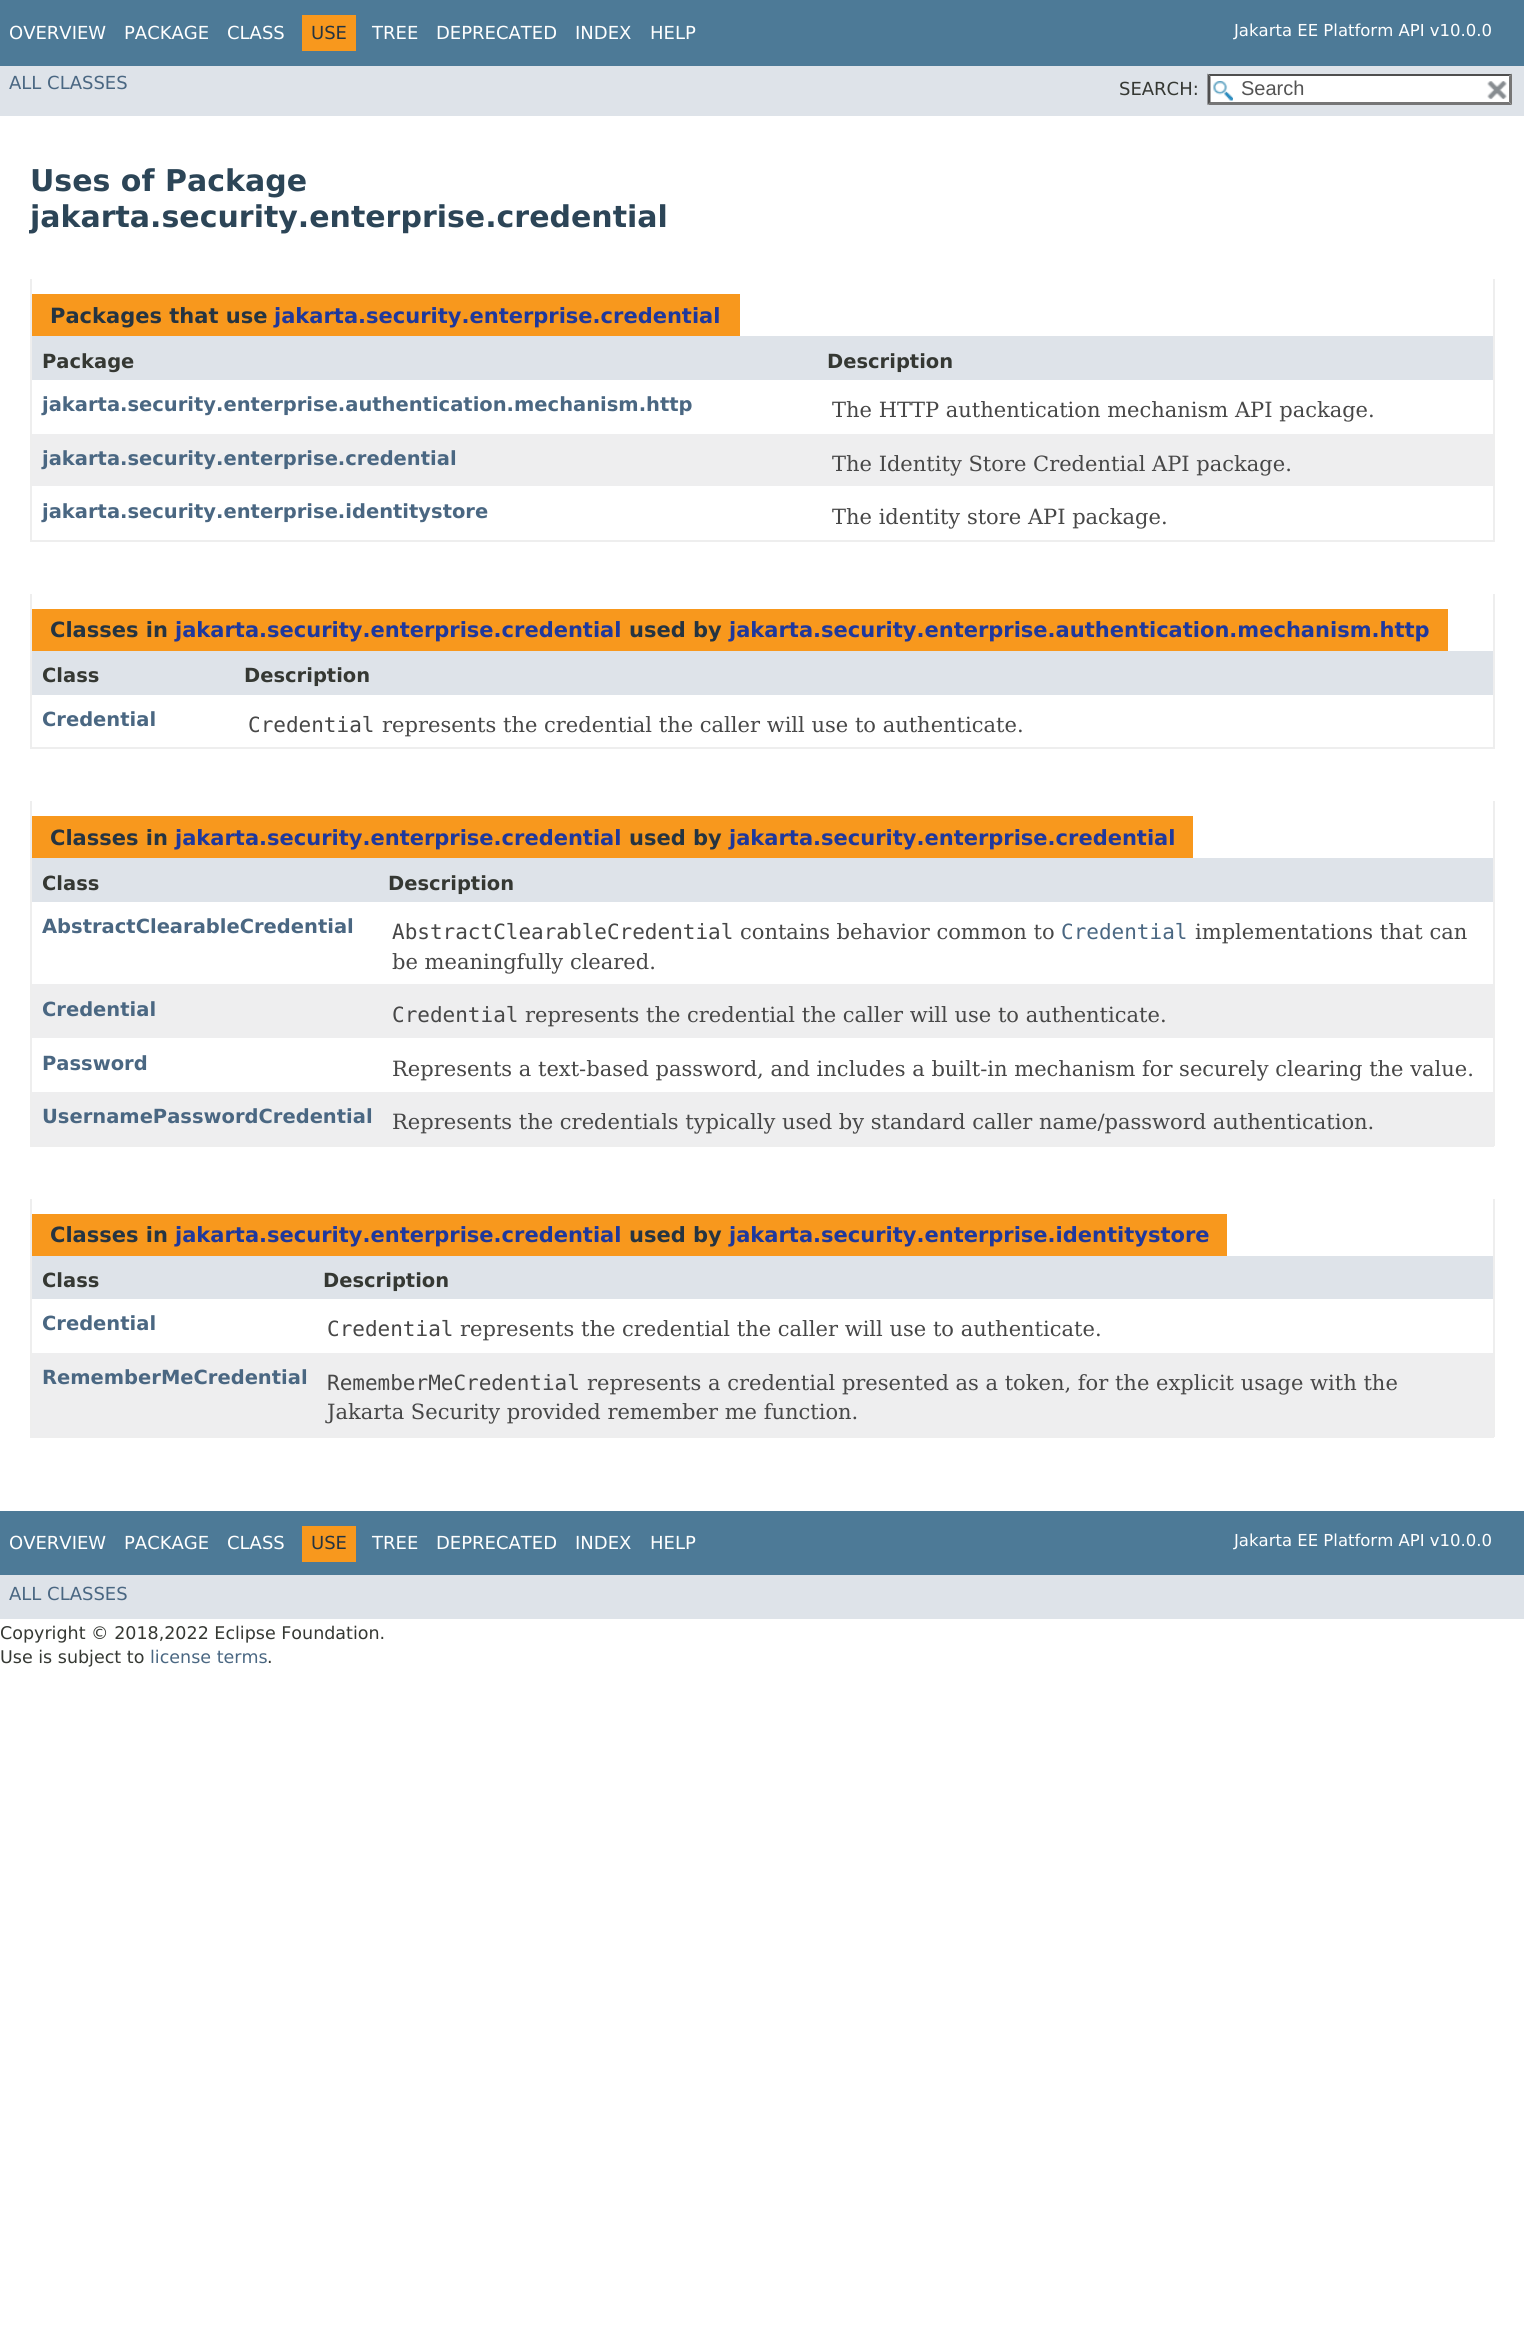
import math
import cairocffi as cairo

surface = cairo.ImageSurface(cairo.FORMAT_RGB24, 1524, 2331)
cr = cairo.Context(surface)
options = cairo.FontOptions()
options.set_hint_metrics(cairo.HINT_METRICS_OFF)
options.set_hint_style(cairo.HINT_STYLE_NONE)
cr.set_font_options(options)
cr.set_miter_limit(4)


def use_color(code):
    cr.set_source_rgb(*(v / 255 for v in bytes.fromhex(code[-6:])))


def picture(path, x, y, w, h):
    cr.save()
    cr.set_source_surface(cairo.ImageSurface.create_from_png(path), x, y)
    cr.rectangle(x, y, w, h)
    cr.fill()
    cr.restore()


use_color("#ffffff")
cr.paint()
use_color("#4d7a97")
cr.rectangle(0, 0, 1524, 66)
cr.fill()
cr.select_font_face("DejaVu Sans")
cr.set_font_size(18)
use_color("#ffffff")
cr.move_to(9, 39)
cr.show_text("OVERVIEW")
cr.move_to(124, 39)
cr.show_text("PACKAGE")
cr.move_to(227, 39)
cr.show_text("CLASS")
use_color("#f8981d")
cr.rectangle(302, 15, 54, 36)
cr.fill()
use_color("#253441")
cr.move_to(311, 39)
cr.show_text("USE")
use_color("#ffffff")
cr.move_to(372, 39)
cr.show_text("TREE")
cr.move_to(436, 39)
cr.show_text("DEPRECATED")
cr.move_to(575, 39)
cr.show_text("INDEX")
cr.move_to(650, 39)
cr.show_text("HELP")
cr.set_font_size(16.5)
cr.move_to(1234, 36)
cr.show_text("Jakarta EE Platform API v10.0.0")
use_color("#dee3e9")
cr.rectangle(0, 66, 1524, 50)
cr.fill()
cr.set_font_size(18)
use_color("#4a6782")
cr.move_to(9, 89)
cr.show_text("ALL CLASSES")
use_color("#353833")
cr.move_to(1119, 95)
cr.show_text("SEARCH:")
use_color("#ffffff")
cr.rectangle(1208, 74, 304, 31)
cr.fill()
picture("img1.png", 1213, 81, 20, 20)
use_color("#4f4f4f")
cr.new_path()
cr.move_to(1208, 74)
cr.line_to(1512, 74)
cr.line_to(1509, 76)
cr.line_to(1210, 76)
cr.close_path()
cr.fill()
use_color("#767676")
cr.new_path()
cr.move_to(1512, 73.5)
cr.line_to(1512, 105)
cr.line_to(1509, 102)
cr.line_to(1509, 76.5)
cr.close_path()
cr.fill()
cr.new_path()
cr.move_to(1512, 105)
cr.line_to(1208, 105)
cr.line_to(1210, 102)
cr.line_to(1509, 102)
cr.close_path()
cr.fill()
use_color("#4f4f4f")
cr.new_path()
cr.move_to(1207.5, 105)
cr.line_to(1207.5, 73.5)
cr.line_to(1210.5, 76.5)
cr.line_to(1210.5, 102)
cr.close_path()
cr.fill()
cr.select_font_face("Liberation Sans")
cr.set_font_size(20)
use_color("#545454")
cr.move_to(1241, 95)
cr.show_text("Search")
picture("img2.png", 1487, 81, 20, 19)
cr.select_font_face("DejaVu Sans", cairo.FONT_SLANT_NORMAL, cairo.FONT_WEIGHT_BOLD)
cr.set_font_size(30)
use_color("#2c4557")
cr.move_to(30, 191)
cr.show_text("Uses of Package")
cr.move_to(30, 227)
cr.show_text("jakarta.security.enterprise.credential")
use_color("#eeeeee")
cr.rectangle(1493, 279, 2, 263)
cr.fill()
cr.rectangle(30, 540, 1464, 2)
cr.fill()
cr.rectangle(30, 279, 2, 263)
cr.fill()
use_color("#f8981d")
cr.rectangle(32, 294, 708, 42)
cr.fill()
cr.set_font_size(21)
use_color("#253441")
cr.move_to(50, 323)
cr.show_text("Packages that use")
use_color("#1f389c")
cr.move_to(274, 323)
cr.show_text("jakarta.security.enterprise.credential")
use_color("#dee3e9")
cr.rectangle(32, 336, 1461, 44)
cr.fill()
cr.set_font_size(19.5)
use_color("#353833")
cr.move_to(42, 368)
cr.show_text("Package")
cr.move_to(827, 368)
cr.show_text("Description")
use_color("#4a6782")
cr.move_to(42, 411)
cr.show_text("jakarta.security.enterprise.authentication.mechanism.http")
cr.select_font_face("DejaVu Serif")
cr.set_font_size(21)
use_color("#474747")
cr.move_to(832, 417)
cr.show_text("The HTTP authentication mechanism API package.")
use_color("#eeeeef")
cr.rectangle(32, 434, 1461, 52)
cr.fill()
cr.select_font_face("DejaVu Sans", cairo.FONT_SLANT_NORMAL, cairo.FONT_WEIGHT_BOLD)
cr.set_font_size(19.5)
use_color("#4a6782")
cr.move_to(42, 465)
cr.show_text("jakarta.security.enterprise.credential")
cr.select_font_face("DejaVu Serif")
cr.set_font_size(21)
use_color("#474747")
cr.move_to(832, 471)
cr.show_text("The Identity Store Credential API package.")
cr.select_font_face("DejaVu Sans", cairo.FONT_SLANT_NORMAL, cairo.FONT_WEIGHT_BOLD)
cr.set_font_size(19.5)
use_color("#4a6782")
cr.move_to(42, 518)
cr.show_text("jakarta.security.enterprise.identitystore")
cr.select_font_face("DejaVu Serif")
cr.set_font_size(21)
use_color("#474747")
cr.move_to(832, 524)
cr.show_text("The identity store API package.")
use_color("#eeeeee")
cr.rectangle(1493, 594, 2, 155)
cr.fill()
cr.rectangle(30, 747, 1464, 2)
cr.fill()
cr.rectangle(30, 594, 2, 155)
cr.fill()
use_color("#f8981d")
cr.rectangle(32, 609, 1416, 42)
cr.fill()
cr.select_font_face("DejaVu Sans", cairo.FONT_SLANT_NORMAL, cairo.FONT_WEIGHT_BOLD)
use_color("#253441")
cr.move_to(50, 637)
cr.show_text("Classes in")
use_color("#1f389c")
cr.move_to(175, 637)
cr.show_text("jakarta.security.enterprise.credential")
use_color("#253441")
cr.move_to(629, 637)
cr.show_text("used by")
use_color("#1f389c")
cr.move_to(729, 637)
cr.show_text("jakarta.security.enterprise.authentication.mechanism.http")
use_color("#dee3e9")
cr.rectangle(32, 651, 1461, 44)
cr.fill()
cr.set_font_size(19.5)
use_color("#353833")
cr.move_to(42, 682)
cr.show_text("Class")
cr.move_to(244, 682)
cr.show_text("Description")
use_color("#4a6782")
cr.move_to(42, 726)
cr.show_text("Credential")
cr.select_font_face("DejaVu Sans Mono")
cr.set_font_size(21)
use_color("#474747")
cr.move_to(248, 732)
cr.show_text("Credential")
cr.select_font_face("DejaVu Serif")
cr.move_to(382, 732)
cr.show_text("represents the credential the caller will use to authenticate.")
use_color("#eeeeee")
cr.rectangle(1493, 801, 2, 345)
cr.fill()
cr.rectangle(30, 1145, 1464, 2)
cr.fill()
cr.rectangle(30, 801, 2, 345)
cr.fill()
use_color("#f8981d")
cr.rectangle(32, 816, 1161, 42)
cr.fill()
cr.select_font_face("DejaVu Sans", cairo.FONT_SLANT_NORMAL, cairo.FONT_WEIGHT_BOLD)
use_color("#253441")
cr.move_to(50, 845)
cr.show_text("Classes in")
use_color("#1f389c")
cr.move_to(175, 845)
cr.show_text("jakarta.security.enterprise.credential")
use_color("#253441")
cr.move_to(629, 845)
cr.show_text("used by")
use_color("#1f389c")
cr.move_to(729, 845)
cr.show_text("jakarta.security.enterprise.credential")
use_color("#dee3e9")
cr.rectangle(32, 858, 1461, 44)
cr.fill()
cr.set_font_size(19.5)
use_color("#353833")
cr.move_to(42, 890)
cr.show_text("Class")
cr.move_to(388, 890)
cr.show_text("Description")
use_color("#4a6782")
cr.move_to(42, 933)
cr.show_text("AbstractClearableCredential")
cr.select_font_face("DejaVu Sans Mono")
cr.set_font_size(21)
use_color("#474747")
cr.move_to(392, 939)
cr.show_text("AbstractClearableCredential")
cr.select_font_face("DejaVu Serif")
cr.move_to(740, 939)
cr.show_text("contains behavior common to")
cr.select_font_face("DejaVu Sans Mono")
use_color("#4a6782")
cr.move_to(1061, 939)
cr.show_text("Credential")
cr.select_font_face("DejaVu Serif")
use_color("#474747")
cr.move_to(1195, 939)
cr.show_text("implementations that can")
cr.move_to(392, 969)
cr.show_text("be meaningfully cleared.")
use_color("#eeeeef")
cr.rectangle(32, 984, 1461, 54)
cr.fill()
cr.select_font_face("DejaVu Sans", cairo.FONT_SLANT_NORMAL, cairo.FONT_WEIGHT_BOLD)
cr.set_font_size(19.5)
use_color("#4a6782")
cr.move_to(42, 1016)
cr.show_text("Credential")
cr.select_font_face("DejaVu Sans Mono")
cr.set_font_size(21)
use_color("#474747")
cr.move_to(392, 1022)
cr.show_text("Credential")
cr.select_font_face("DejaVu Serif")
cr.move_to(525, 1022)
cr.show_text("represents the credential the caller will use to authenticate.")
cr.select_font_face("DejaVu Sans", cairo.FONT_SLANT_NORMAL, cairo.FONT_WEIGHT_BOLD)
cr.set_font_size(19.5)
use_color("#4a6782")
cr.move_to(42, 1070)
cr.show_text("Password")
cr.select_font_face("DejaVu Serif")
cr.set_font_size(21)
use_color("#474747")
cr.move_to(392, 1076)
cr.show_text("Represents a text-based password, and includes a built-in mechanism for securely clearing the value.")
use_color("#eeeeef")
cr.rectangle(32, 1092, 1461, 53)
cr.fill()
cr.select_font_face("DejaVu Sans", cairo.FONT_SLANT_NORMAL, cairo.FONT_WEIGHT_BOLD)
cr.set_font_size(19.5)
use_color("#4a6782")
cr.move_to(42, 1123)
cr.show_text("UsernamePasswordCredential")
cr.select_font_face("DejaVu Serif")
cr.set_font_size(21)
use_color("#474747")
cr.move_to(392, 1129)
cr.show_text("Represents the credentials typically used by standard caller name/password authentication.")
use_color("#eeeeee")
cr.rectangle(1493, 1199, 2, 238)
cr.fill()
cr.rectangle(30, 1436, 1464, 2)
cr.fill()
cr.rectangle(30, 1199, 2, 238)
cr.fill()
use_color("#f8981d")
cr.rectangle(32, 1214, 1195, 42)
cr.fill()
cr.select_font_face("DejaVu Sans", cairo.FONT_SLANT_NORMAL, cairo.FONT_WEIGHT_BOLD)
use_color("#253441")
cr.move_to(50, 1242)
cr.show_text("Classes in")
use_color("#1f389c")
cr.move_to(175, 1242)
cr.show_text("jakarta.security.enterprise.credential")
use_color("#253441")
cr.move_to(629, 1242)
cr.show_text("used by")
use_color("#1f389c")
cr.move_to(729, 1242)
cr.show_text("jakarta.security.enterprise.identitystore")
use_color("#dee3e9")
cr.rectangle(32, 1256, 1461, 43)
cr.fill()
cr.set_font_size(19.5)
use_color("#353833")
cr.move_to(42, 1287)
cr.show_text("Class")
cr.move_to(323, 1287)
cr.show_text("Description")
use_color("#4a6782")
cr.move_to(42, 1330)
cr.show_text("Credential")
cr.select_font_face("DejaVu Sans Mono")
cr.set_font_size(21)
use_color("#474747")
cr.move_to(327, 1336)
cr.show_text("Credential")
cr.select_font_face("DejaVu Serif")
cr.move_to(460, 1336)
cr.show_text("represents the credential the caller will use to authenticate.")
use_color("#eeeeef")
cr.rectangle(32, 1353, 1461, 83)
cr.fill()
cr.select_font_face("DejaVu Sans", cairo.FONT_SLANT_NORMAL, cairo.FONT_WEIGHT_BOLD)
cr.set_font_size(19.5)
use_color("#4a6782")
cr.move_to(42, 1384)
cr.show_text("RememberMeCredential")
cr.select_font_face("DejaVu Sans Mono")
cr.set_font_size(21)
use_color("#474747")
cr.move_to(327, 1390)
cr.show_text("RememberMeCredential")
cr.select_font_face("DejaVu Serif")
cr.move_to(587, 1390)
cr.show_text("represents a credential presented as a token, for the explicit usage with the")
cr.move_to(327, 1419)
cr.show_text("Jakarta Security provided remember me function.")
use_color("#4d7a97")
cr.rectangle(0, 1511, 1524, 64)
cr.fill()
cr.select_font_face("DejaVu Sans")
cr.set_font_size(18)
use_color("#ffffff")
cr.move_to(9, 1549)
cr.show_text("OVERVIEW")
cr.move_to(124, 1549)
cr.show_text("PACKAGE")
cr.move_to(227, 1549)
cr.show_text("CLASS")
use_color("#f8981d")
cr.rectangle(302, 1526, 54, 36)
cr.fill()
use_color("#253441")
cr.move_to(311, 1549)
cr.show_text("USE")
use_color("#ffffff")
cr.move_to(372, 1549)
cr.show_text("TREE")
cr.move_to(436, 1549)
cr.show_text("DEPRECATED")
cr.move_to(575, 1549)
cr.show_text("INDEX")
cr.move_to(650, 1549)
cr.show_text("HELP")
cr.set_font_size(16.5)
cr.move_to(1234, 1546)
cr.show_text("Jakarta EE Platform API v10.0.0")
use_color("#dee3e9")
cr.rectangle(0, 1575, 1524, 44)
cr.fill()
cr.set_font_size(18)
use_color("#4a6782")
cr.move_to(9, 1600)
cr.show_text("ALL CLASSES")
cr.set_font_size(17.5)
use_color("#353833")
cr.move_to(0, 1639)
cr.show_text("Copyright © 2018,2022 Eclipse Foundation.")
cr.move_to(0, 1663)
cr.show_text("Use is subject to")
use_color("#4a6782")
cr.move_to(150, 1663)
cr.show_text("license terms")
use_color("#353833")
cr.move_to(267, 1663)
cr.show_text(".")
surface.write_to_png("result.png")
